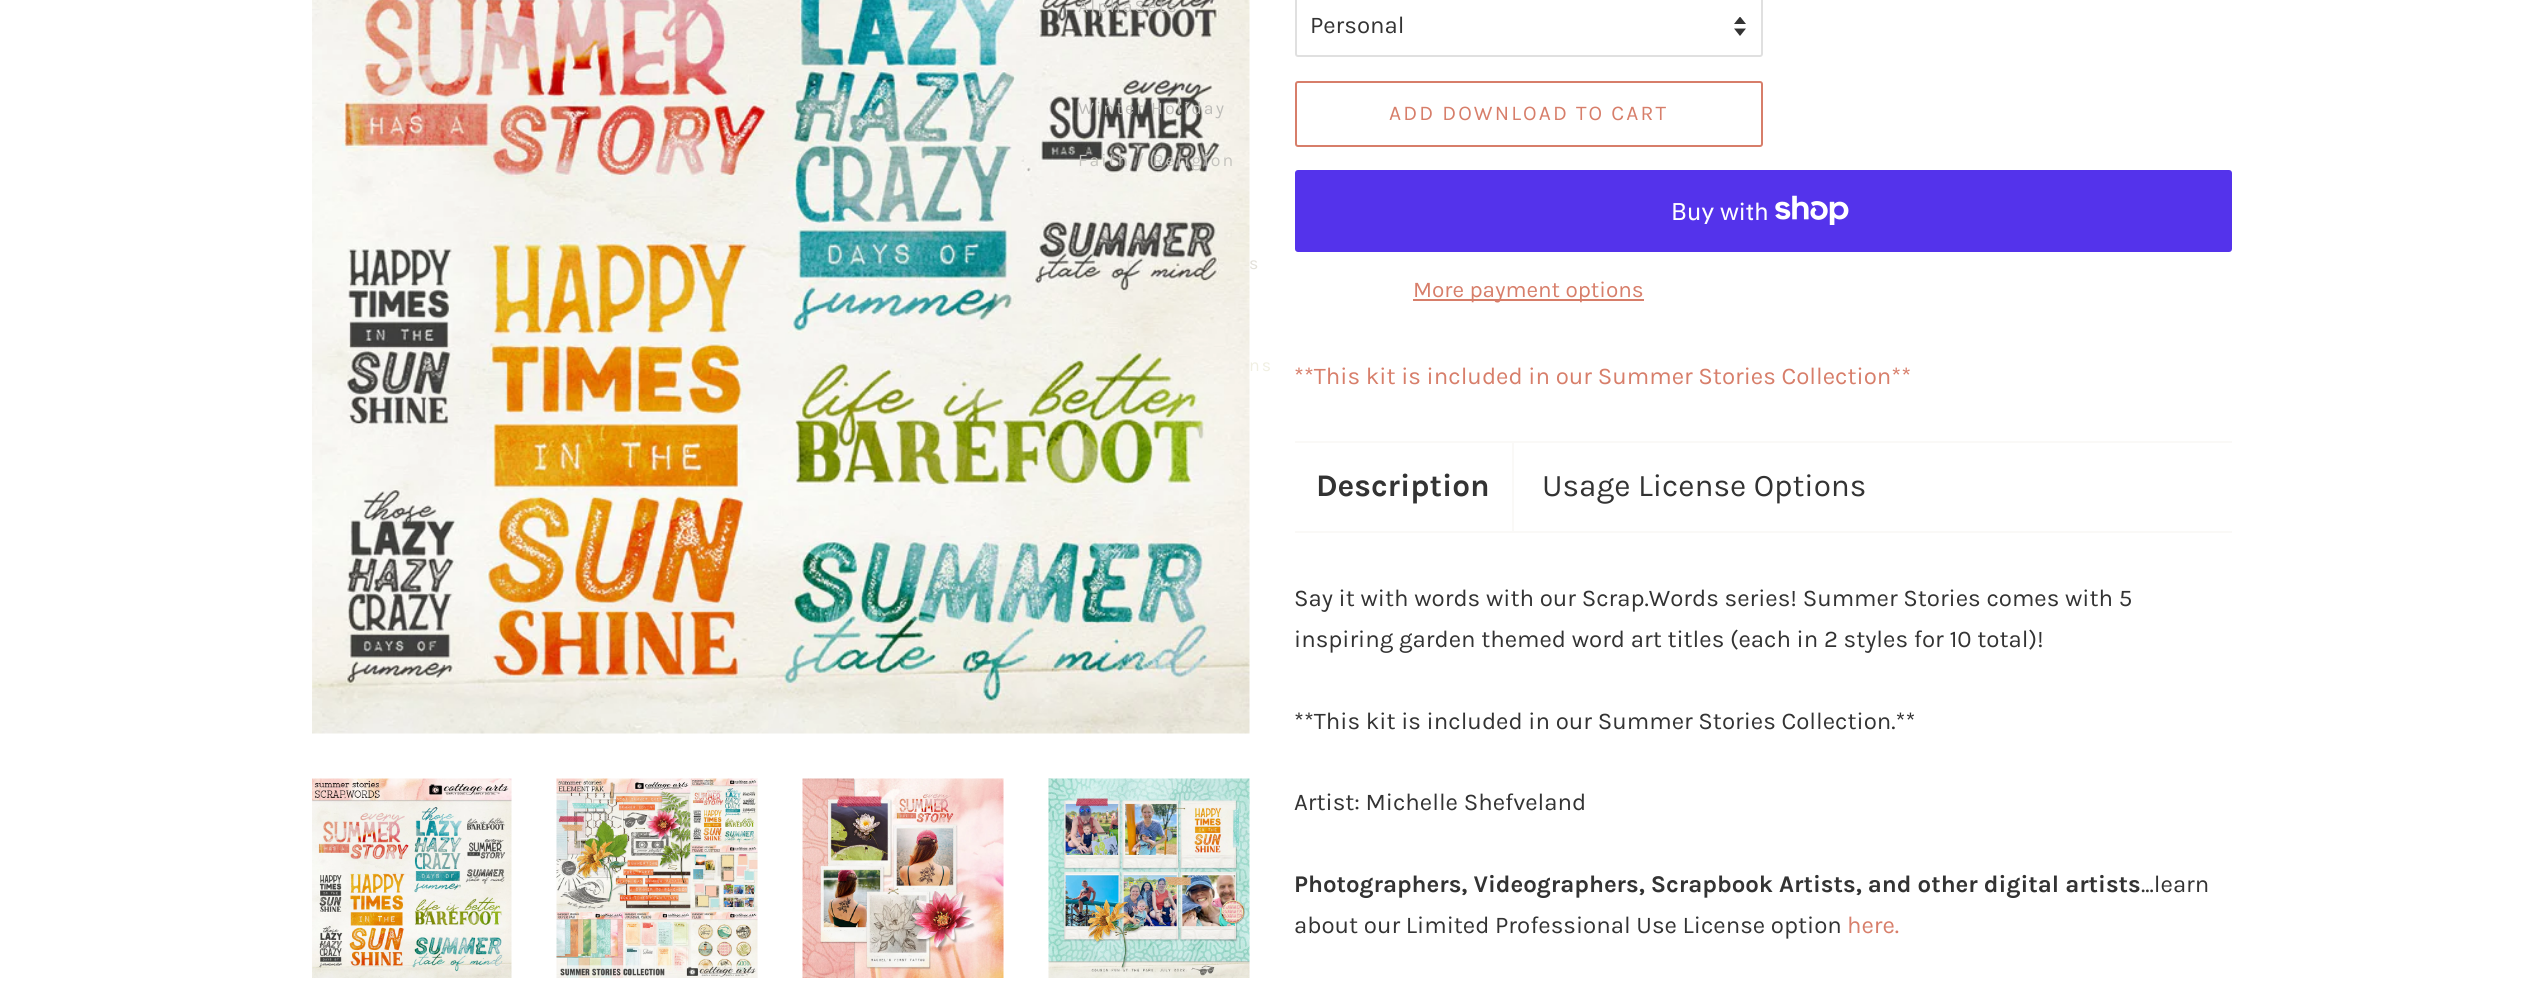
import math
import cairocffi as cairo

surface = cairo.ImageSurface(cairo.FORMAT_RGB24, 2542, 988)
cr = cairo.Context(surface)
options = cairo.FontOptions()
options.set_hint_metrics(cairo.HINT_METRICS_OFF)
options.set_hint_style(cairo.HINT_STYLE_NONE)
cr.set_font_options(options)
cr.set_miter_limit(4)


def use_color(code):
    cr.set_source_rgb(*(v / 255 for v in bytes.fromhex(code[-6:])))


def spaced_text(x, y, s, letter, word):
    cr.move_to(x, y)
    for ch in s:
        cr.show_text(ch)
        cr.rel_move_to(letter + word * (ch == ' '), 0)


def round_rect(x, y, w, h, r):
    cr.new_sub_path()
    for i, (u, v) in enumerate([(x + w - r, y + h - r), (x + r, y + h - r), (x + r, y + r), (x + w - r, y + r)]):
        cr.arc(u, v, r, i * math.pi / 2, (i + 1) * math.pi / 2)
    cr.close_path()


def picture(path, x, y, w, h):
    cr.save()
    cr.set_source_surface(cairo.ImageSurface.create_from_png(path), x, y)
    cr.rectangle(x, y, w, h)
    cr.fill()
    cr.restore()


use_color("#ffffff")
cr.paint()
picture("img1.png", 312, 0, 938, 734)
cr.select_font_face("Karla")
cr.set_font_size(17.75)
use_color("#bdbcb8")
spaced_text(1078, 12, "AlphaSets", 2.1, 0)
spaced_text(1078, 114, "Winter Holiday", 2.1, 0)
use_color("#c4c3be")
spaced_text(1078, 166, "Faith / Religion", 2.1, 0)
use_color("#e2e0d9")
spaced_text(1126, 269, "r", 2.1, 0)
spaced_text(1249, 269, "s", 2.1, 0)
use_color("#f0efe2")
spaced_text(1249, 371, "ns", 2.1, 0)
picture("img2.png", 312, 778, 200, 200)
picture("img3.png", 556, 778, 202, 200)
picture("img4.png", 802, 778, 202, 200)
picture("img5.png", 1048, 778, 202, 200)
picture("img6.png", 1734, 17, 12, 19)
round_rect(1296, -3, 466, 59, 2)
use_color("#e0e0e0")
cr.stroke()
cr.set_font_size(24)
use_color("#333333")
cr.move_to(1310, 33)
cr.show_text("Personal")
round_rect(1296, 82, 466, 64, 2)
use_color("#d77e6a")
cr.stroke()
cr.set_font_size(21)
spaced_text(1389, 120, "ADD DOWNLOAD TO CART", 2.1, 0)
use_color("#5433eb")
round_rect(1295, 170, 937, 82, 3)
cr.fill()
cr.select_font_face("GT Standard")
cr.set_font_size(24)
use_color("#ffffff")
cr.move_to(1671, 220)
cr.show_text("Buy with")
picture("img7.png", 1775, 195, 74, 30)
use_color("#d77e6a")
cr.rectangle(1413, 299, 231, 2)
cr.fill()
cr.select_font_face("Karla")
cr.set_font_size(22.5)
cr.move_to(1413, 297)
cr.show_text("More payment options")
cr.set_font_size(24)
cr.move_to(1294, 384)
cr.show_text("**This kit is included in our Summer Stories Collection**")
use_color("#faf9f7")
cr.rectangle(1295, 441, 937, 2)
cr.fill()
cr.rectangle(1295, 531, 937, 2)
cr.fill()
cr.rectangle(1512, 443, 2, 88)
cr.fill()
cr.select_font_face("Karla", cairo.FONT_SLANT_NORMAL, cairo.FONT_WEIGHT_BOLD)
cr.set_font_size(31.5)
use_color("#333333")
cr.move_to(1316, 496)
cr.show_text("Description")
cr.select_font_face("Karla")
cr.move_to(1542, 496)
cr.show_text("Usage License Options")
cr.set_font_size(24)
cr.move_to(1294, 606)
cr.show_text("Say it with words with our Scrap.Words series! Summer Stories comes with 5")
cr.move_to(1294, 647)
cr.show_text("inspiring garden themed word art titles (each in 2 styles for 10 total)!")
cr.move_to(1294, 729)
cr.show_text("**This kit is included in our Summer Stories Collection.**")
cr.move_to(1294, 810)
cr.show_text("Artist: Michelle Shefveland")
cr.select_font_face("Karla", cairo.FONT_SLANT_NORMAL, cairo.FONT_WEIGHT_BOLD)
cr.move_to(1294, 892)
cr.show_text("Photographers, Videographers, Scrapbook Artists, and other digital artists")
cr.select_font_face("Karla")
cr.move_to(2141, 892)
cr.show_text("...learn")
cr.move_to(1294, 933)
cr.show_text("about our Limited Professional Use License option")
use_color("#d77e6a")
cr.move_to(1847, 933)
cr.show_text("here.")
surface.write_to_png("result.png")
